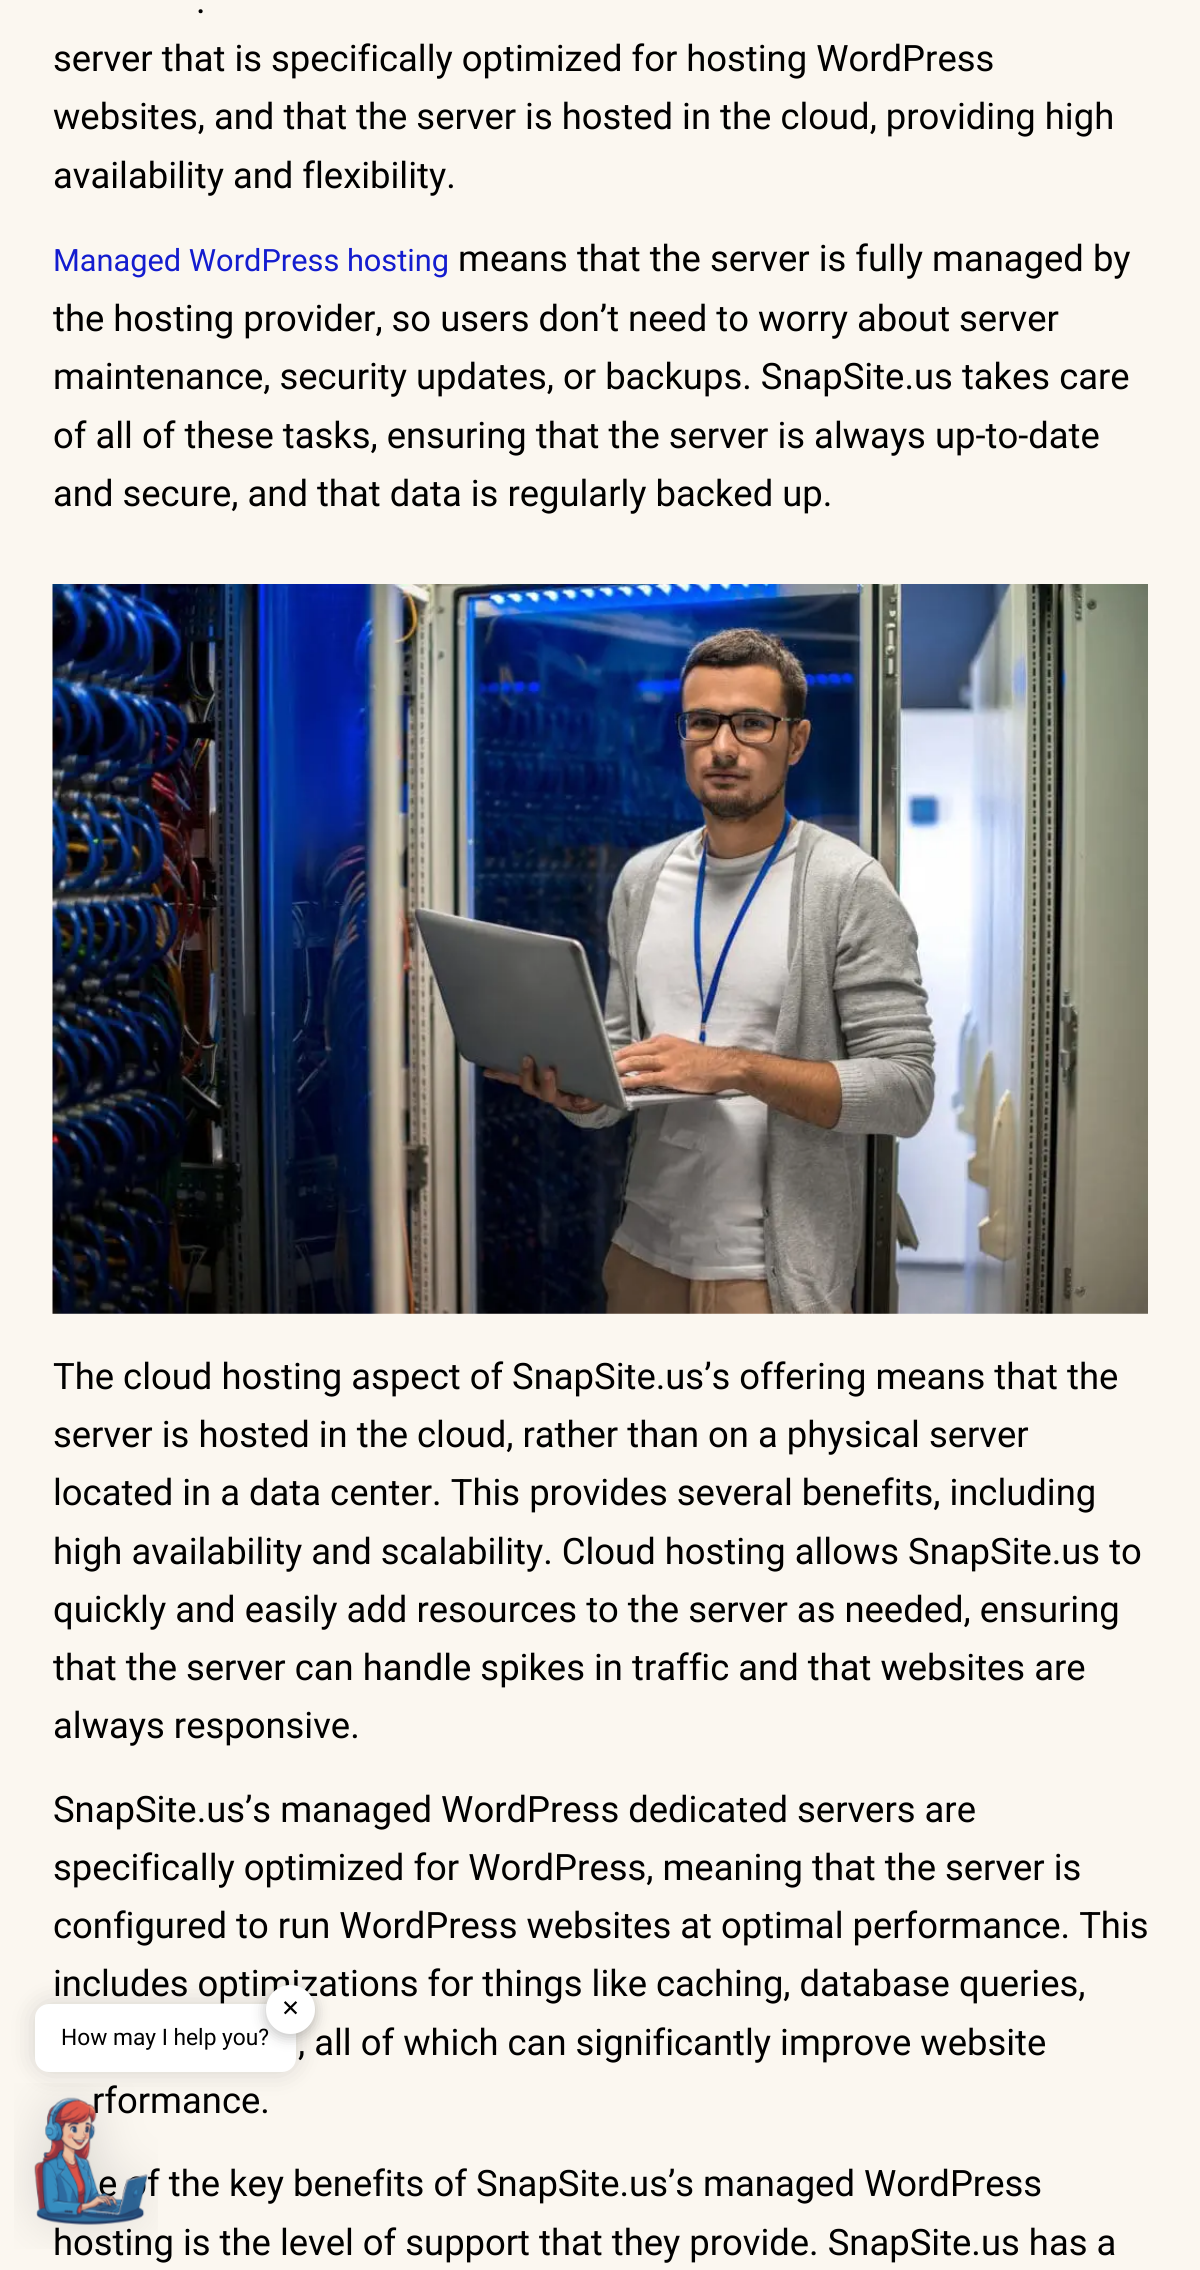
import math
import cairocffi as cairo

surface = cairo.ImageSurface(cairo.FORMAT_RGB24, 1200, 2270)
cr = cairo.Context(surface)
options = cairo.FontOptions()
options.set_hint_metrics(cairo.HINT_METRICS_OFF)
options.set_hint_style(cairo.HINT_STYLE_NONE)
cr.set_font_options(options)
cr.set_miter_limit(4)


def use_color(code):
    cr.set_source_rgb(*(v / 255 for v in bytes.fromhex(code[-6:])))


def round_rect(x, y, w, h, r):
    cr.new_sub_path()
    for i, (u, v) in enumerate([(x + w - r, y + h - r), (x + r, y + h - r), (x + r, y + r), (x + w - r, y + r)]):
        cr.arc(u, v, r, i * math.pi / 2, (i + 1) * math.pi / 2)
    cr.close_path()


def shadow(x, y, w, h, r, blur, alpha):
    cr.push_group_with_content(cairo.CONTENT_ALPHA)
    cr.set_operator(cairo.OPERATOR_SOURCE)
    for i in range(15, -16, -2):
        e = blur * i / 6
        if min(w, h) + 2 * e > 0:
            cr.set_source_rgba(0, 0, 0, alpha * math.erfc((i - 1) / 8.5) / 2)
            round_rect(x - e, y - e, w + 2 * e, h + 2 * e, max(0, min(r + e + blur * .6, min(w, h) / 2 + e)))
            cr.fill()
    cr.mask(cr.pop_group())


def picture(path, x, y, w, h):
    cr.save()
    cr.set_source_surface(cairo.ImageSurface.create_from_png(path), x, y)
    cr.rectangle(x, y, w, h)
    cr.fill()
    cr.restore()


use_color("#fbf7f0")
cr.paint()
cr.select_font_face("Roboto")
cr.set_font_size(36.4)
use_color("#000000")
cr.move_to(196, 13)
cr.show_text(".")
cr.move_to(53, 71)
cr.show_text("server that is specifically optimized for hosting WordPress")
cr.move_to(53, 129)
cr.show_text("websites, and that the server is hosted in the cloud, providing high")
cr.move_to(53, 188)
cr.show_text("availability and flexibility.")
cr.set_font_size(30.75)
use_color("#131ccf")
cr.move_to(53, 271)
cr.show_text("Managed WordPress hosting")
cr.set_font_size(36.4)
use_color("#000000")
cr.move_to(458, 271)
cr.show_text("means that the server is fully managed by")
cr.move_to(53, 331)
cr.show_text("the hosting provider, so users don’t need to worry about server")
cr.move_to(53, 389)
cr.show_text("maintenance, security updates, or backups. SnapSite.us takes care")
cr.move_to(53, 448)
cr.show_text("of all of these tasks, ensuring that the server is always up-to-date")
cr.move_to(53, 506)
cr.show_text("and secure, and that data is regularly backed up.")
picture("img1.png", 52, 584, 1096, 730)
cr.move_to(53, 1389)
cr.show_text("The cloud hosting aspect of SnapSite.us’s offering means that the")
cr.move_to(53, 1447)
cr.show_text("server is hosted in the cloud, rather than on a physical server")
cr.move_to(53, 1505)
cr.show_text("located in a data center. This provides several benefits, including")
cr.move_to(53, 1564)
cr.show_text("high availability and scalability. Cloud hosting allows SnapSite.us to")
cr.move_to(53, 1622)
cr.show_text("quickly and easily add resources to the server as needed, ensuring")
cr.move_to(53, 1680)
cr.show_text("that the server can handle spikes in traffic and that websites are")
cr.move_to(53, 1738)
cr.show_text("always responsive.")
cr.move_to(53, 1822)
cr.show_text("SnapSite.us’s managed WordPress dedicated servers are")
cr.move_to(53, 1880)
cr.show_text("specifically optimized for WordPress, meaning that the server is")
cr.move_to(53, 1938)
cr.show_text("configured to run WordPress websites at optimal performance. This")
cr.move_to(53, 1996)
cr.show_text("includes optimizations for things like caching, database queries,")
cr.move_to(298, 2055)
cr.show_text(", all of which can significantly improve website")
cr.move_to(92, 2113)
cr.show_text("rformance.")
cr.move_to(98, 2196)
cr.show_text("e of the key benefits of SnapSite.us’s managed WordPress")
cr.move_to(53, 2255)
cr.show_text("hosting is the level of support that they provide. SnapSite.us has a")
picture("img2.png", 14, 2083, 144, 166)
use_color("#000000")
shadow(35, 2004, 261, 68, 14, 13, 0.15)
use_color("#ffffff")
round_rect(35, 2004, 261, 68, 14)
cr.fill()
use_color("#000000")
shadow(266, 1988, 49, 49, 24.5, 7, 0.25)
cr.set_font_size(22.75)
use_color("#000000")
cr.move_to(61, 2045)
cr.show_text("How may I help you?")
use_color("#ffffff")
cr.new_path()
cr.arc(290.5, 2009.5, 24.5, 0, 2 * math.pi)
cr.fill()
cr.select_font_face("DejaVu Sans")
use_color("#000000")
cr.move_to(281, 2016)
cr.show_text("✕")
surface.write_to_png("result.png")
